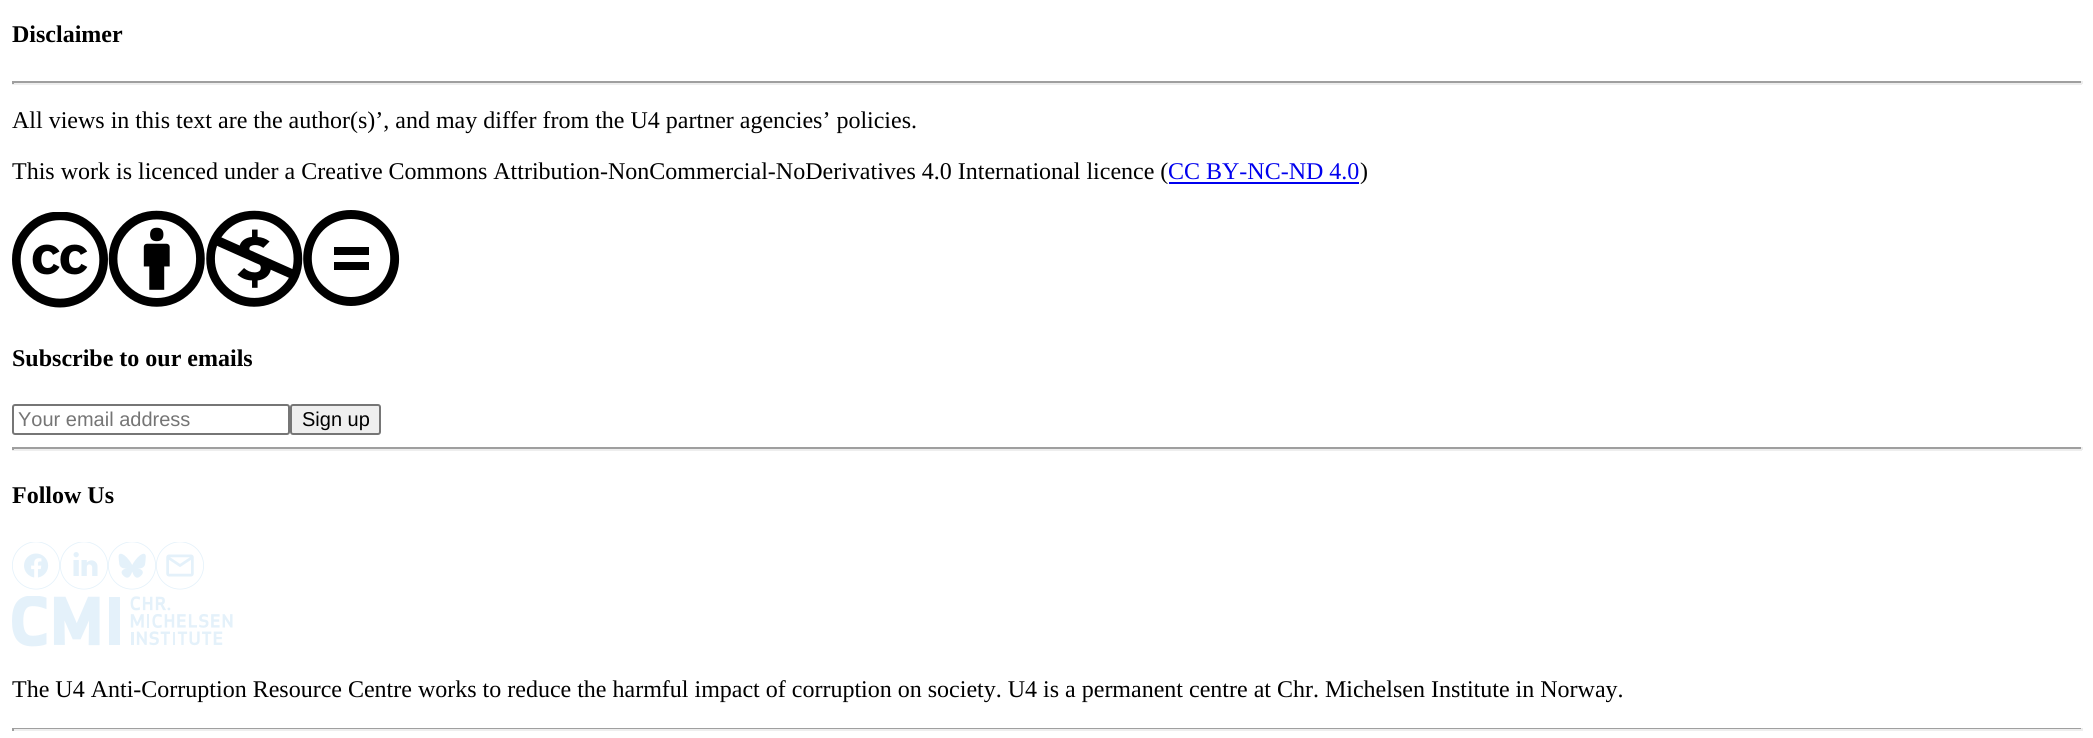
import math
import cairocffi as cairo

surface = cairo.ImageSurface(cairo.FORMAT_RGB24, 2093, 738)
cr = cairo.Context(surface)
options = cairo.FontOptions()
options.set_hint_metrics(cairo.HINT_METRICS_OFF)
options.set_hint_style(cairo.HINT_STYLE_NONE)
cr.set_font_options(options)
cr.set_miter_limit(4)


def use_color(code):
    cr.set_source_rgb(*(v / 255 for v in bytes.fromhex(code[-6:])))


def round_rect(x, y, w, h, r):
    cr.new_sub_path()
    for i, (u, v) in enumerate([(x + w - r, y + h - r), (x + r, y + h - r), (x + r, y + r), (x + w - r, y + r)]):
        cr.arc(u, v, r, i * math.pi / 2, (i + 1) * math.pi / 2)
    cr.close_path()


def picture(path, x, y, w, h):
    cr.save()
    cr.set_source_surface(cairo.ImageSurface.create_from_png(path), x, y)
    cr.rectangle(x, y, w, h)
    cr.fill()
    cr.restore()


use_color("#ffffff")
cr.paint()
cr.select_font_face("Liberation Serif", cairo.FONT_SLANT_NORMAL, cairo.FONT_WEIGHT_BOLD)
cr.set_font_size(24)
use_color("#000000")
cr.move_to(12, 42)
cr.show_text("Disclaimer")
use_color("#9f9f9f")
cr.rectangle(12, 81, 2070, 2)
cr.fill()
use_color("#eeeeee")
cr.rectangle(2081, 81, 2, 3)
cr.fill()
cr.rectangle(12, 83, 2070, 2)
cr.fill()
use_color("#9f9f9f")
cr.rectangle(12, 81, 2, 3)
cr.fill()
cr.select_font_face("Liberation Serif")
use_color("#000000")
cr.move_to(12, 128)
cr.show_text("All views in this text are the author(s)’, and may differ from the U4 partner agencies’ policies.")
cr.move_to(12, 179)
cr.show_text("This work is licenced under a Creative Commons Attribution-NonCommercial-NoDerivatives 4.0 International licence (")
use_color("#0000ee")
cr.move_to(1168, 179)
cr.show_text("CC BY-NC-ND 4.0")
cr.rectangle(1169, 182, 190, 2)
cr.fill()
use_color("#000000")
cr.move_to(1360, 179)
cr.show_text(")")
picture("img1.png", 12, 212, 96, 96)
picture("img2.png", 108, 210, 97, 97)
picture("img3.png", 206, 210, 97, 97)
cr.new_path()
cr.move_to(351, 210)
cr.curve_to(396, 210, 416, 267, 382, 295)
cr.curve_to(373, 302, 362, 306, 351, 306)
cr.curve_to(340, 306, 329, 302, 321, 295)
cr.curve_to(286, 267, 306, 210, 351, 210)
cr.close_path()
cr.move_to(351, 219)
cr.curve_to(314, 219, 298, 265, 326, 288)
cr.curve_to(333, 294, 342, 297, 351, 297)
cr.curve_to(360, 297, 369, 294, 376, 288)
cr.curve_to(404, 265, 388, 219, 351, 219)
cr.close_path()
cr.move_to(369, 247)
cr.line_to(369, 255)
cr.line_to(334, 255)
cr.line_to(334, 247)
cr.close_path()
cr.move_to(369, 262)
cr.line_to(369, 270)
cr.line_to(334, 270)
cr.line_to(334, 262)
cr.close_path()
cr.fill()
cr.select_font_face("Liberation Serif", cairo.FONT_SLANT_NORMAL, cairo.FONT_WEIGHT_BOLD)
cr.move_to(12, 366)
cr.show_text("Subscribe to our emails")
round_rect(13, 405, 276, 29, 2)
use_color("#767676")
cr.stroke()
cr.select_font_face("Liberation Sans")
cr.set_font_size(20)
use_color("#757575")
cr.move_to(18, 426)
cr.show_text("Your email address")
use_color("#efefef")
round_rect(291, 405, 89, 29, 2)
cr.fill_preserve()
use_color("#767676")
cr.stroke()
use_color("#000000")
cr.move_to(302, 426)
cr.show_text("Sign up")
use_color("#9f9f9f")
cr.rectangle(12, 447, 2070, 2)
cr.fill()
use_color("#eeeeee")
cr.rectangle(2081, 447, 2, 3)
cr.fill()
cr.rectangle(12, 449, 2070, 2)
cr.fill()
use_color("#9f9f9f")
cr.rectangle(12, 447, 2, 3)
cr.fill()
cr.select_font_face("Liberation Serif", cairo.FONT_SLANT_NORMAL, cairo.FONT_WEIGHT_BOLD)
cr.set_font_size(24)
use_color("#000000")
cr.move_to(12, 503)
cr.show_text("Follow Us")
picture("img4.png", 12, 542, 48, 48)
picture("img5.png", 60, 542, 48, 48)
picture("img6.png", 108, 542, 48, 48)
picture("img7.png", 156, 542, 48, 48)
picture("img8.png", 12, 596, 221, 51)
cr.select_font_face("Liberation Serif")
cr.move_to(12, 697)
cr.show_text("The U4 Anti-Corruption Resource Centre works to reduce the harmful impact of corruption on society. U4 is a permanent centre at Chr. Michelsen Institute in Norway.")
use_color("#9f9f9f")
cr.rectangle(12, 728, 2070, 1)
cr.fill()
use_color("#eeeeee")
cr.rectangle(2081, 728, 2, 3)
cr.fill()
cr.rectangle(12, 729, 2070, 2)
cr.fill()
use_color("#9f9f9f")
cr.rectangle(12, 728, 2, 3)
cr.fill()
surface.write_to_png("result.png")
